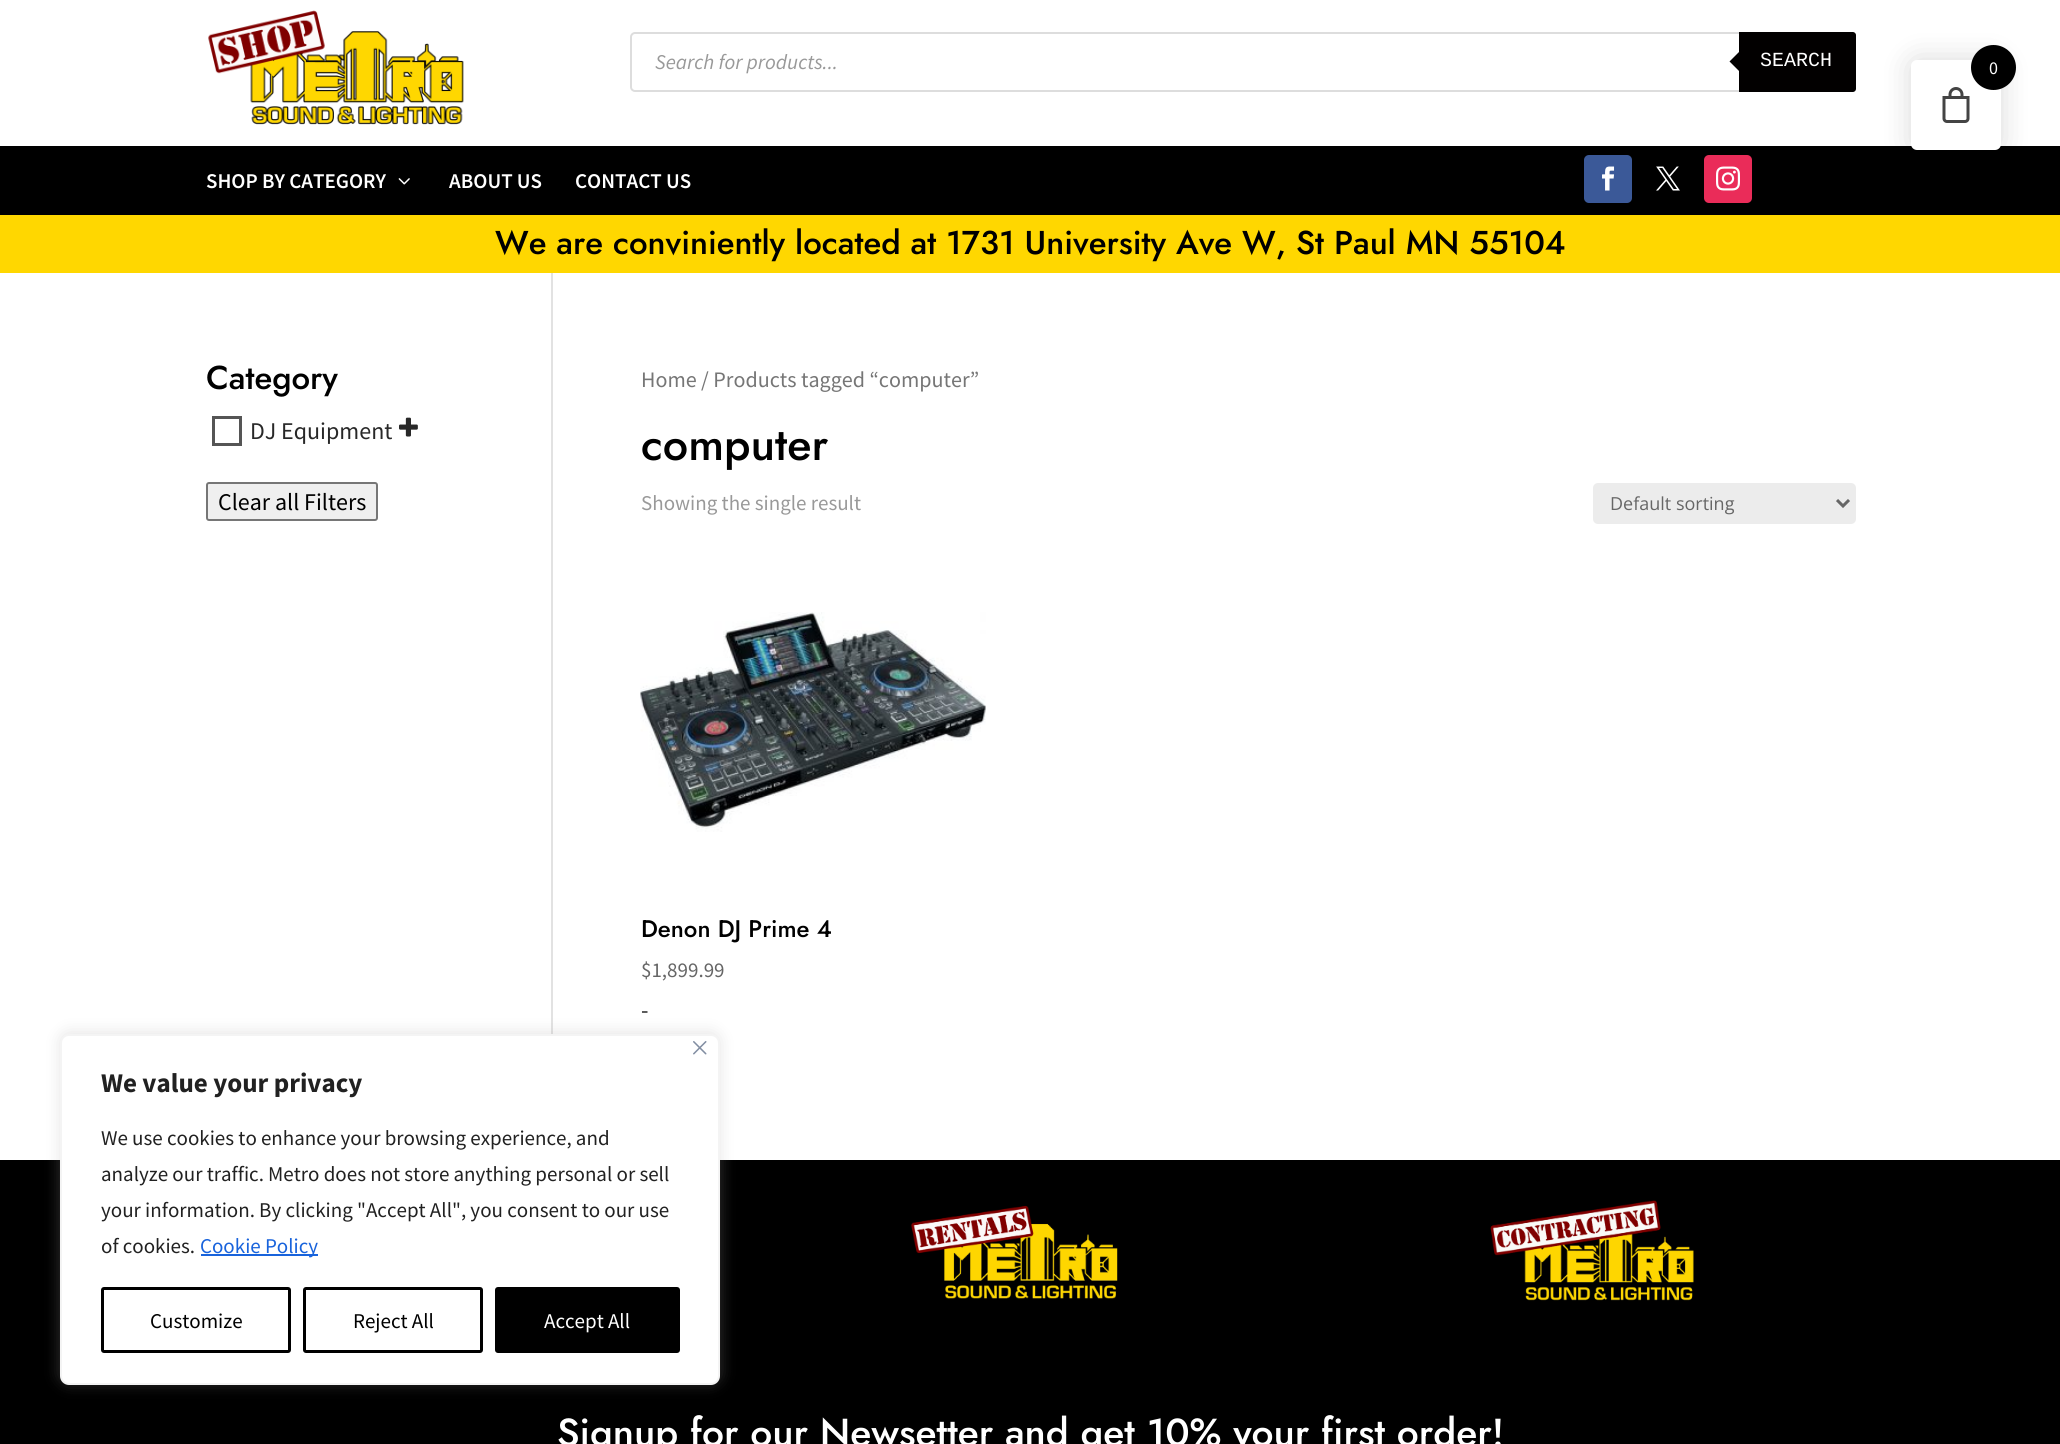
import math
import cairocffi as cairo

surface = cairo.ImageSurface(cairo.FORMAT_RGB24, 2060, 1444)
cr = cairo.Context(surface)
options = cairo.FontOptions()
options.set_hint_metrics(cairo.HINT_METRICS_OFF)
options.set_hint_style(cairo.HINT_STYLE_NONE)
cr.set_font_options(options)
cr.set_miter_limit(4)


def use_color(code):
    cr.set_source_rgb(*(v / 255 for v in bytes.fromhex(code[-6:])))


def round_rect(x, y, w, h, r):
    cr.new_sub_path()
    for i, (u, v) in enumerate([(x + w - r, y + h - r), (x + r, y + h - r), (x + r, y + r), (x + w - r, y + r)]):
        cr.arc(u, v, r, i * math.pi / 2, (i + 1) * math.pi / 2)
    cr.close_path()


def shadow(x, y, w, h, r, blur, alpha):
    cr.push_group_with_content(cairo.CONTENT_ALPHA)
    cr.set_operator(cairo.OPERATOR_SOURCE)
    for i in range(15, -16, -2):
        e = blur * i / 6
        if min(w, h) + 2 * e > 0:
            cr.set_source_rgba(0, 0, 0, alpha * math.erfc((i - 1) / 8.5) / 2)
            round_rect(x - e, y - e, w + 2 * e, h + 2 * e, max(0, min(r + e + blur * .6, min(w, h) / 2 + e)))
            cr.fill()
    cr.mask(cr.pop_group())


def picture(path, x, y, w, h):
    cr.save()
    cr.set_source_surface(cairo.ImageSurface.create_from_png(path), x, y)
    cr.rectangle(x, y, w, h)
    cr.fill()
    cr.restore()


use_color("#ffffff")
cr.paint()
picture("img1.png", 208, 10, 256, 115)
round_rect(631, 33, 1224, 58, 4)
use_color("#dddddd")
cr.stroke()
cr.select_font_face("Source Sans Pro", cairo.FONT_SLANT_ITALIC)
cr.set_font_size(21)
use_color("#999999")
cr.move_to(655, 69)
cr.show_text("Search for products...")
use_color("#020000")
cr.new_path()
cr.move_to(1739, 32)
cr.line_to(1853, 32)
cr.curve_to(1854.5, 32, 1856, 33.5, 1856, 35)
cr.line_to(1856, 89)
cr.curve_to(1856, 90.5, 1854.5, 92, 1853, 92)
cr.line_to(1739, 92)
cr.close_path()
cr.fill()
cr.new_path()
cr.move_to(1741.5, 49.5)
cr.line_to(1741.5, 73.5)
cr.line_to(1729.5, 61.5)
cr.close_path()
cr.fill()
cr.select_font_face("Liberation Mono")
cr.set_font_size(20)
use_color("#ffffff")
cr.move_to(1760, 66)
cr.show_text("SEARCH")
use_color("#000000")
cr.rectangle(0, 146, 2060, 69)
cr.fill()
cr.select_font_face("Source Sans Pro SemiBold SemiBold")
cr.set_font_size(21)
use_color("#ffffff")
cr.move_to(206, 188)
cr.show_text("SHOP BY CATEGORY")
picture("img2.png", 398, 178, 12, 7)
cr.move_to(449, 188)
cr.show_text("ABOUT US")
cr.move_to(575, 188)
cr.show_text("CONTACT US")
use_color("#3b5998")
round_rect(1584, 155, 48, 48, 5)
cr.fill()
picture("img3.png", 1602, 166, 13, 25)
picture("img4.png", 1656, 166, 24, 25)
use_color("#ea2c59")
round_rect(1704, 155, 48, 48, 5)
cr.fill()
picture("img5.png", 1716, 166, 24, 25)
use_color("#ffd700")
cr.rectangle(0, 215, 2060, 58)
cr.fill()
cr.select_font_face("Jost Medium")
cr.set_font_size(33)
use_color("#000000")
cr.move_to(495, 254)
cr.show_text("We are conviniently located at 1731 University Ave W, St Paul MN 55104")
use_color("#e2e2e2")
cr.rectangle(551, 273, 2, 761)
cr.fill()
use_color("#000000")
cr.move_to(206, 389)
cr.show_text("Category")
cr.rectangle(213.5, 417.5, 27, 27)
use_color("#555555")
cr.set_line_width(3)
cr.stroke()
cr.select_font_face("Source Sans Pro")
cr.set_font_size(24)
use_color("#282828")
cr.move_to(250, 439)
cr.show_text("DJ Equipment")
picture("img6.png", 399, 417, 19, 20)
use_color("#efefef")
round_rect(207, 483, 170, 37, 2)
cr.fill_preserve()
use_color("#767676")
cr.set_line_width(2)
cr.stroke()
use_color("#000000")
cr.move_to(218, 510)
cr.show_text("Clear all Filters")
cr.set_font_size(22.1)
use_color("#767676")
cr.move_to(641, 387)
cr.show_text("Home / Products tagged “computer”")
cr.select_font_face("Jost Medium")
cr.set_font_size(45)
use_color("#000000")
cr.move_to(641, 460)
cr.show_text("computer")
cr.select_font_face("Source Sans Pro")
cr.set_font_size(21)
use_color("#999999")
cr.move_to(641, 510)
cr.show_text("Showing the single result")
use_color("#ececec")
round_rect(1593, 483, 263, 41, 5)
cr.fill()
cr.new_path()
cr.move_to(1837, 500)
cr.line_to(1843, 506)
cr.line_to(1849, 500)
use_color("#666666")
cr.set_line_width(3)
cr.stroke()
cr.select_font_face("Open Sans")
cr.set_font_size(18)
cr.move_to(1610, 510)
cr.show_text("Default sorting")
picture("img7.png", 640, 612, 346, 220)
cr.select_font_face("Jost Medium")
cr.set_font_size(24)
use_color("#000000")
cr.move_to(641, 937)
cr.show_text("Denon DJ Prime 4")
cr.select_font_face("Source Sans Pro")
cr.set_font_size(21)
use_color("#666666")
cr.move_to(641, 977)
cr.show_text("$1,899.99")
cr.set_font_size(24)
use_color("#282828")
cr.move_to(641, 1018)
cr.show_text("-")
use_color("#000000")
cr.rectangle(0, 1160, 2060, 284)
cr.fill()
picture("img8.png", 911, 1205, 207, 94)
picture("img9.png", 1490, 1200, 204, 101)
cr.select_font_face("Jost Medium")
cr.set_font_size(39)
use_color("#ffffff")
cr.move_to(557, 1446)
cr.show_text("Signup for our Newsetter and get 10% your first order!")
use_color("#000000")
shadow(1911, 60, 90, 90, 6, 15, 0.15)
use_color("#ffffff")
round_rect(1911, 60, 90, 90, 6)
cr.fill()
use_color("#000000")
cr.arc(1993.5, 67.5, 22.5, 0, 2 * math.pi)
cr.fill()
cr.select_font_face("Source Sans Pro")
cr.set_font_size(18)
use_color("#ffffff")
cr.move_to(1989, 74)
cr.show_text("0")
picture("img10.png", 1942, 87, 28, 36)
use_color("#acabab")
shadow(60, 1032, 660, 351, 9, 7.5, 0.3)
use_color("#ffffff")
round_rect(61, 1035, 658, 349, 8)
cr.fill_preserve()
use_color("#f4f4f4")
cr.set_line_width(2)
cr.stroke()
picture("img11.png", 693, 1041, 14, 14)
cr.select_font_face("Source Sans Pro", cairo.FONT_SLANT_NORMAL, cairo.FONT_WEIGHT_BOLD)
cr.set_font_size(27)
use_color("#212121")
cr.move_to(101, 1092)
cr.show_text("We value your privacy")
cr.select_font_face("Source Sans Pro")
cr.set_font_size(21)
cr.move_to(101, 1145)
cr.show_text("We use cookies to enhance your browsing experience, and")
cr.move_to(101, 1181)
cr.show_text("analyze our traffic. Metro does not store anything personal or sell")
cr.move_to(101, 1217)
cr.show_text("your information. By clicking \"Accept All\", you consent to our use")
cr.move_to(101, 1253)
cr.show_text("of cookies.")
use_color("#1863dc")
cr.rectangle(201, 1254, 117, 2)
cr.fill()
cr.move_to(200, 1253)
cr.show_text("Cookie Policy")
round_rect(102.5, 1288.5, 187, 63, 1.5)
use_color("#000000")
cr.set_line_width(3)
cr.stroke()
cr.move_to(150, 1328)
cr.show_text("Customize")
round_rect(304.5, 1288.5, 177, 63, 1.5)
cr.stroke()
cr.move_to(353, 1328)
cr.show_text("Reject All")
round_rect(496.5, 1288.5, 182, 63, 1.5)
cr.fill_preserve()
cr.stroke()
use_color("#ffffff")
cr.move_to(544, 1328)
cr.show_text("Accept All")
surface.write_to_png("result.png")
